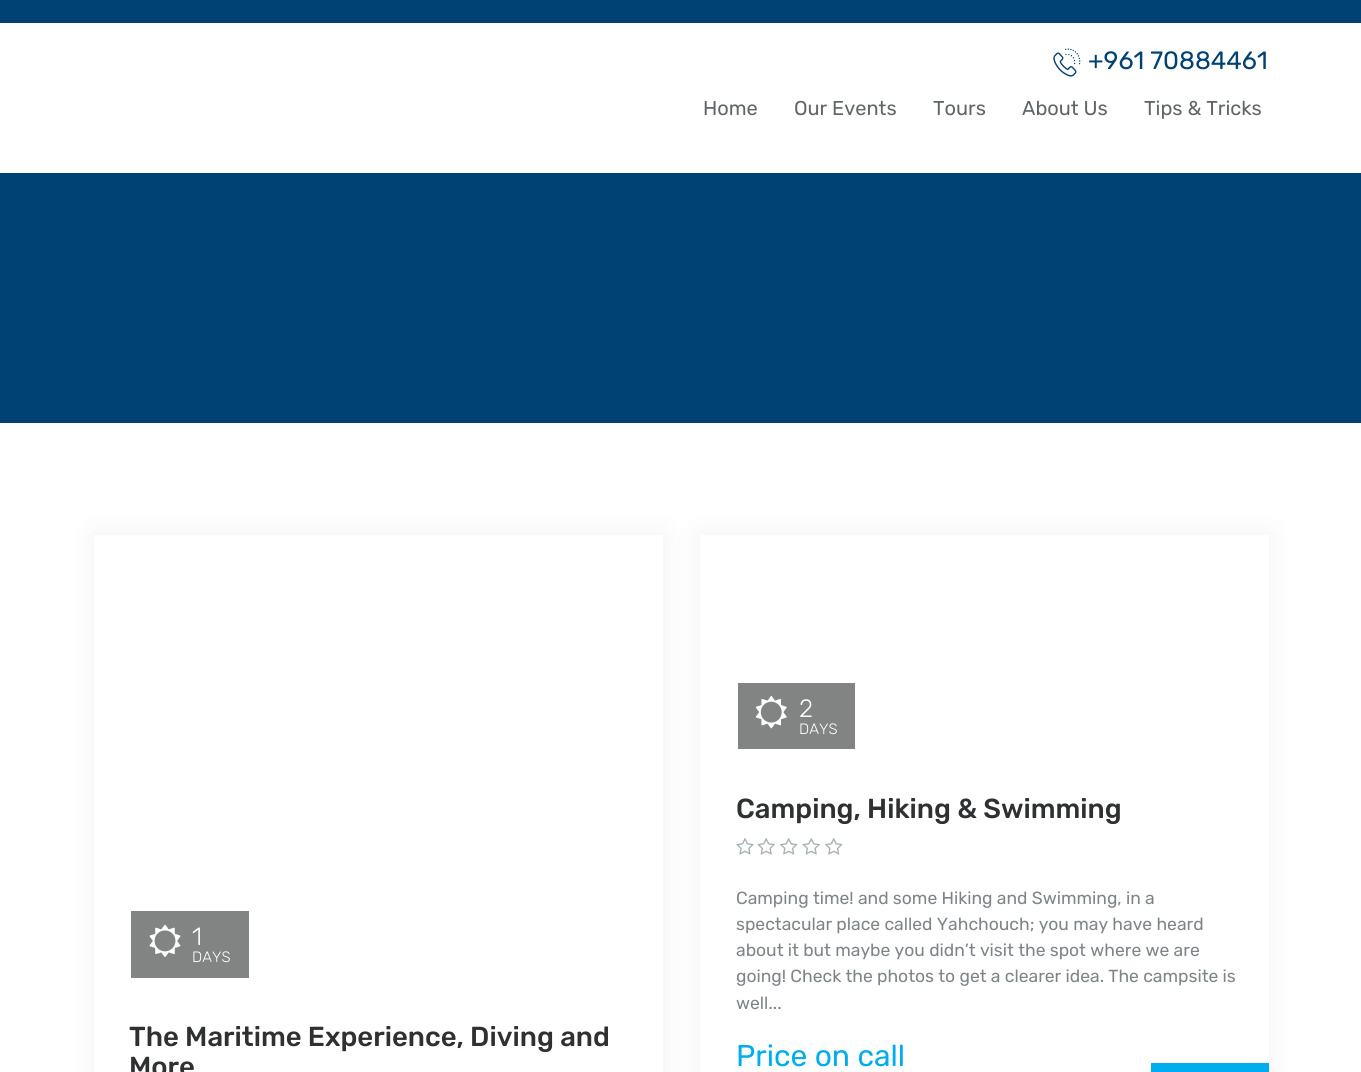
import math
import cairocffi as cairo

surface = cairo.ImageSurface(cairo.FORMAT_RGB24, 1361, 1072)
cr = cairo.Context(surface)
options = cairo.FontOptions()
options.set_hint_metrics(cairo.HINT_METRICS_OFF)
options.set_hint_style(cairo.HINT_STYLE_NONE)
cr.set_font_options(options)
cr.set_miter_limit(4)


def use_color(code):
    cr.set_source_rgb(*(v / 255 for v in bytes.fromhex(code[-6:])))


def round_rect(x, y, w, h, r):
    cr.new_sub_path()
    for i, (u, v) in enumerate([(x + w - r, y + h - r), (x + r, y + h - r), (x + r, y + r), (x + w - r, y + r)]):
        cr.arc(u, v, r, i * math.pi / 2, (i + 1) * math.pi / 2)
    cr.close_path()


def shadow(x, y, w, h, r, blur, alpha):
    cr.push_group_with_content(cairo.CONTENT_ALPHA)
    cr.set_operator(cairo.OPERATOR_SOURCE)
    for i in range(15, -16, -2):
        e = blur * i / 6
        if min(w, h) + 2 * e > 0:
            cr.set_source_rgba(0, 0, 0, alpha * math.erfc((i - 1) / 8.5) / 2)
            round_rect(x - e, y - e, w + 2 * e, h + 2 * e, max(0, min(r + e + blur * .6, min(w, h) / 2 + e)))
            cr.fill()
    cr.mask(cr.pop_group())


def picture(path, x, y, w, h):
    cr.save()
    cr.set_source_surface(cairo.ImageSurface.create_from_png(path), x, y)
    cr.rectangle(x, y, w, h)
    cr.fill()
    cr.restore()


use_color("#ffffff")
cr.paint()
use_color("#004274")
cr.rectangle(0, 0, 1361, 23)
cr.fill()
picture("img1.png", 1053, 48, 28, 29)
cr.select_font_face("Rubik")
cr.set_font_size(25)
cr.move_to(1088, 69)
cr.show_text("+961 70884461")
cr.set_font_size(20)
use_color("#606668")
cr.move_to(703, 115)
cr.show_text("Home")
cr.move_to(794, 115)
cr.show_text("Our Events")
cr.move_to(933, 115)
cr.show_text("Tours")
cr.move_to(1022, 115)
cr.show_text("About Us")
cr.move_to(1144, 115)
cr.show_text("Tips & Tricks")
use_color("#004274")
cr.rectangle(0, 173, 1361, 250)
cr.fill()
use_color("#000000")
shadow(94, 535, 569, 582, 0, 15, 0.06)
use_color("#ffffff")
cr.rectangle(94, 535, 569, 537)
cr.fill()
use_color("#828383")
cr.rectangle(131, 911, 118, 67)
cr.fill()
picture("img2.png", 149, 924, 32, 33)
cr.select_font_face("Rubik Light")
cr.set_font_size(25)
use_color("#ffffff")
cr.move_to(192, 945)
cr.show_text("1")
cr.set_font_size(15)
cr.move_to(192, 962)
cr.show_text("DAYS")
cr.select_font_face("Rubik Medium")
cr.set_font_size(27.5)
use_color("#2e3031")
cr.move_to(129, 1046)
cr.show_text("The Maritime Experience, Diving and")
cr.move_to(129, 1076)
cr.show_text("More")
use_color("#000000")
shadow(700, 535, 569, 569, 0, 15, 0.06)
use_color("#ffffff")
cr.rectangle(700, 535, 569, 537)
cr.fill()
use_color("#828383")
cr.rectangle(738, 683, 117, 66)
cr.fill()
picture("img3.png", 755, 696, 32, 33)
cr.select_font_face("Rubik Light")
cr.set_font_size(25)
use_color("#ffffff")
cr.move_to(799, 717)
cr.show_text("2")
cr.set_font_size(15)
cr.move_to(799, 734)
cr.show_text("DAYS")
cr.select_font_face("Rubik Medium")
cr.set_font_size(27.5)
use_color("#2e3031")
cr.move_to(736, 818)
cr.show_text("Camping, Hiking & Swimming")
picture("img4.png", 736, 838, 18, 17)
picture("img5.png", 757, 838, 18, 17)
picture("img6.png", 780, 838, 18, 17)
picture("img5.png", 802, 838, 18, 17)
picture("img6.png", 825, 838, 18, 17)
cr.select_font_face("Rubik")
cr.set_font_size(17.5)
use_color("#7e8588")
cr.move_to(736, 904)
cr.show_text("Camping time! and some Hiking and Swimming, in a")
cr.move_to(736, 930)
cr.show_text("spectacular place called Yahchouch; you may have heard")
cr.move_to(736, 956)
cr.show_text("about it but maybe you didn’t visit the spot where we are")
cr.move_to(736, 982)
cr.show_text("going! Check the photos to get a clearer idea. The campsite is")
cr.move_to(736, 1009)
cr.show_text("well...")
cr.set_font_size(30)
use_color("#00aeef")
cr.move_to(736, 1066)
cr.show_text("Price on call")
cr.rectangle(1151, 1063, 118, 9)
cr.fill()
surface.write_to_png("result.png")
